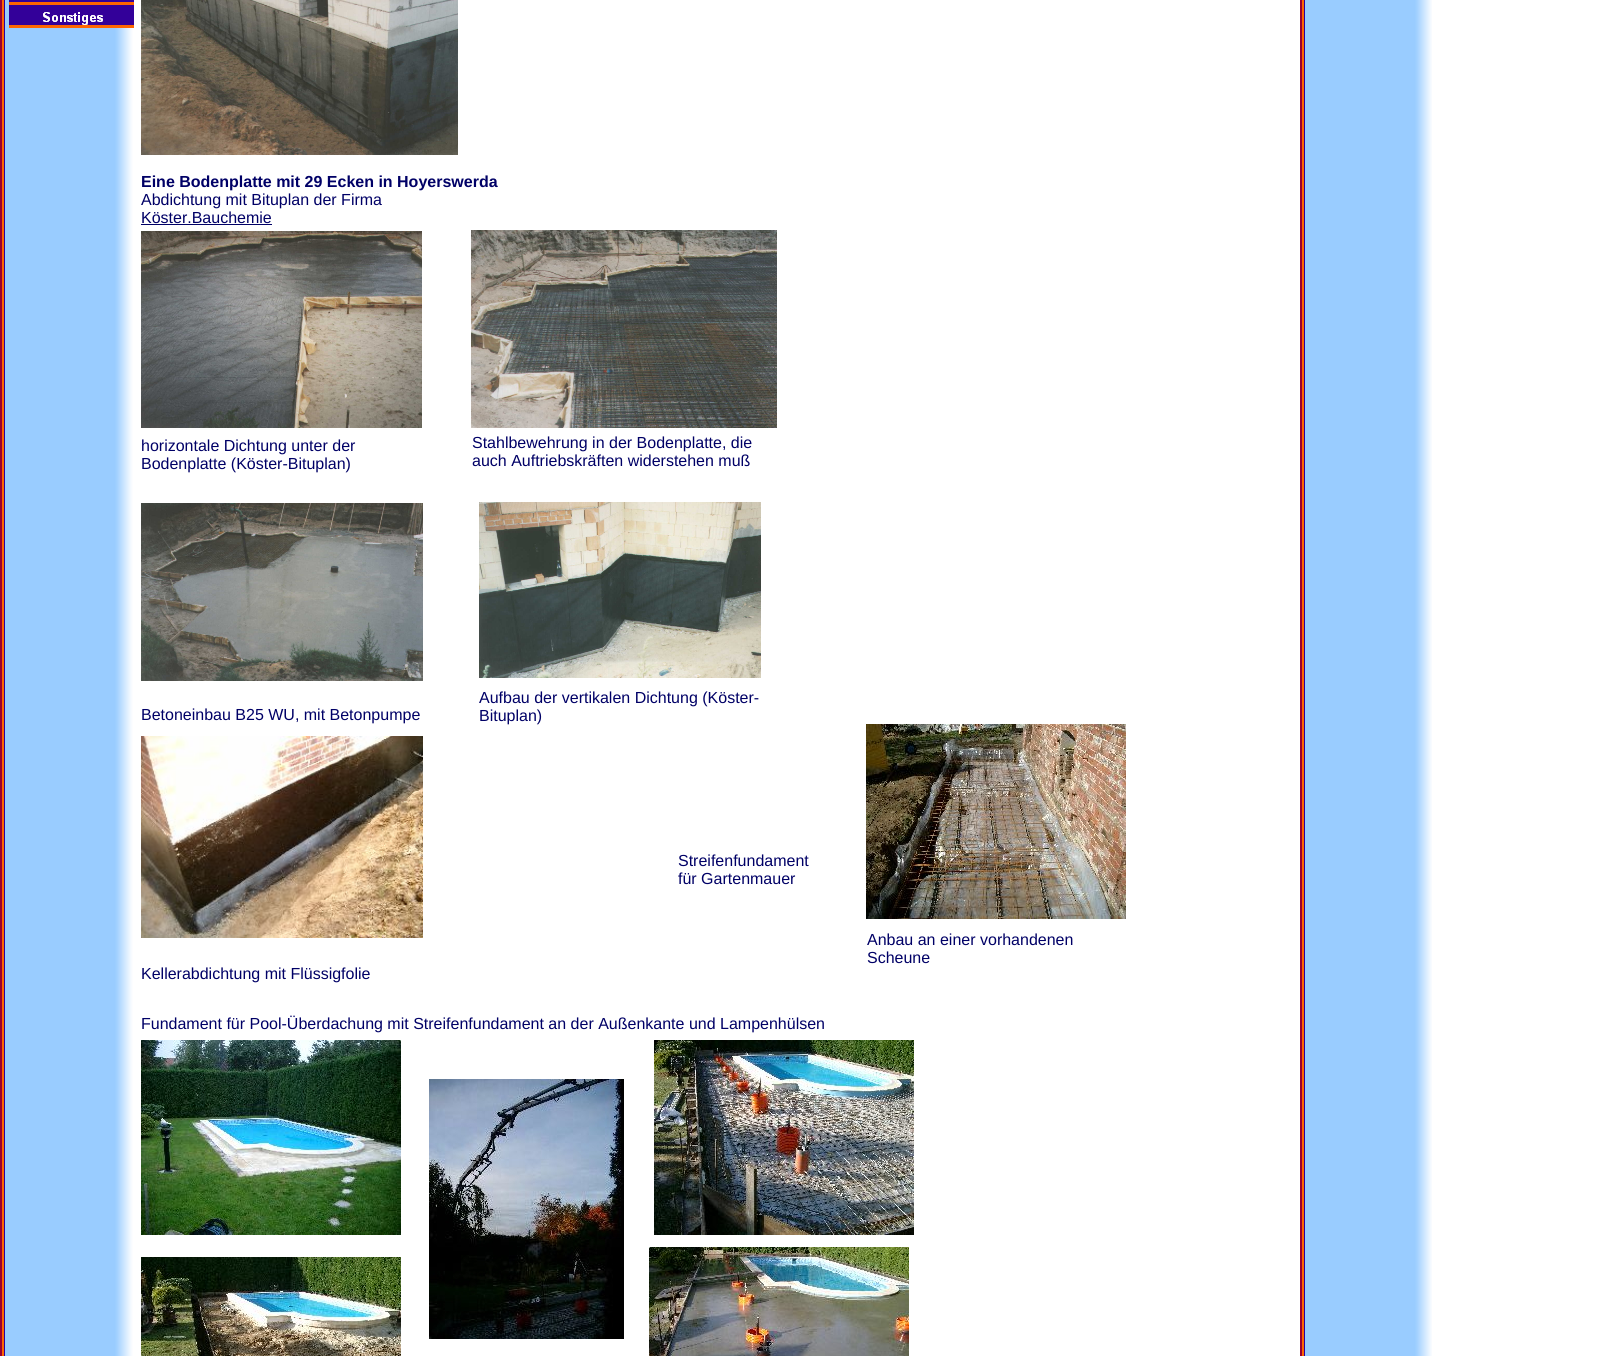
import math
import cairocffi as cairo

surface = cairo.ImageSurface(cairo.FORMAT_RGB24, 1609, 1356)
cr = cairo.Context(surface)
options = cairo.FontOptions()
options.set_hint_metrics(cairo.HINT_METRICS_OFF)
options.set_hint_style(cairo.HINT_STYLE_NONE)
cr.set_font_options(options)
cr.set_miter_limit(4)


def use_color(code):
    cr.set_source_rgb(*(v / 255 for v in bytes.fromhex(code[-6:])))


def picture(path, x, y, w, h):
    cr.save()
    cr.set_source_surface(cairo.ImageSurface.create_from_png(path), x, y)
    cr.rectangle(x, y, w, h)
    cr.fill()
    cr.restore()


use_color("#ffffff")
cr.paint()
picture("img1.png", 0, 0, 1432, 1356)
picture("img2.png", 9, 0, 125, 5)
picture("img3.png", 9, 5, 125, 23)
picture("img4.png", 141, 0, 317, 155)
cr.select_font_face("Liberation Sans", cairo.FONT_SLANT_NORMAL, cairo.FONT_WEIGHT_BOLD)
cr.set_font_size(16)
use_color("#000066")
cr.move_to(141, 187)
cr.show_text("Eine Bodenplatte mit 29 Ecken in Hoyerswerda")
cr.select_font_face("Liberation Sans")
cr.move_to(141, 205)
cr.show_text("Abdichtung mit Bituplan der Firma")
cr.move_to(141, 223)
cr.show_text("Köster.Bauchemie")
cr.rectangle(141, 224, 131, 1)
cr.fill()
picture("img5.png", 141, 231, 281, 197)
cr.move_to(141, 451)
cr.show_text("horizontale Dichtung unter der")
cr.move_to(141, 469)
cr.show_text("Bodenplatte (Köster-Bituplan)")
picture("img6.png", 141, 503, 282, 178)
cr.move_to(141, 720)
cr.show_text("Betoneinbau B25 WU, mit Betonpumpe")
picture("img7.png", 141, 736, 282, 202)
cr.move_to(141, 979)
cr.show_text("Kellerabdichtung mit Flüssigfolie")
picture("img8.png", 471, 230, 306, 198)
cr.move_to(472, 448)
cr.show_text("Stahlbewehrung in der Bodenplatte, die")
cr.move_to(472, 466)
cr.show_text("auch Auftriebskräften widerstehen muß")
picture("img9.png", 479, 502, 282, 176)
cr.move_to(479, 703)
cr.show_text("Aufbau der vertikalen Dichtung (Köster-")
cr.move_to(479, 721)
cr.show_text("Bituplan)")
cr.move_to(678, 866)
cr.show_text("Streifenfundament")
cr.move_to(678, 884)
cr.show_text("für Gartenmauer")
picture("img10.png", 866, 724, 260, 195)
cr.move_to(867, 945)
cr.show_text("Anbau an einer vorhandenen")
cr.move_to(867, 963)
cr.show_text("Scheune")
cr.move_to(141, 1029)
cr.show_text("Fundament für Pool-Überdachung mit Streifenfundament an der Außenkante und Lampenhülsen")
picture("img11.png", 141, 1040, 260, 195)
picture("img12.png", 141, 1257, 260, 99)
picture("img13.png", 429, 1079, 195, 260)
picture("img14.png", 654, 1040, 260, 195)
picture("img15.png", 649, 1247, 260, 109)
surface.write_to_png("result.png")
